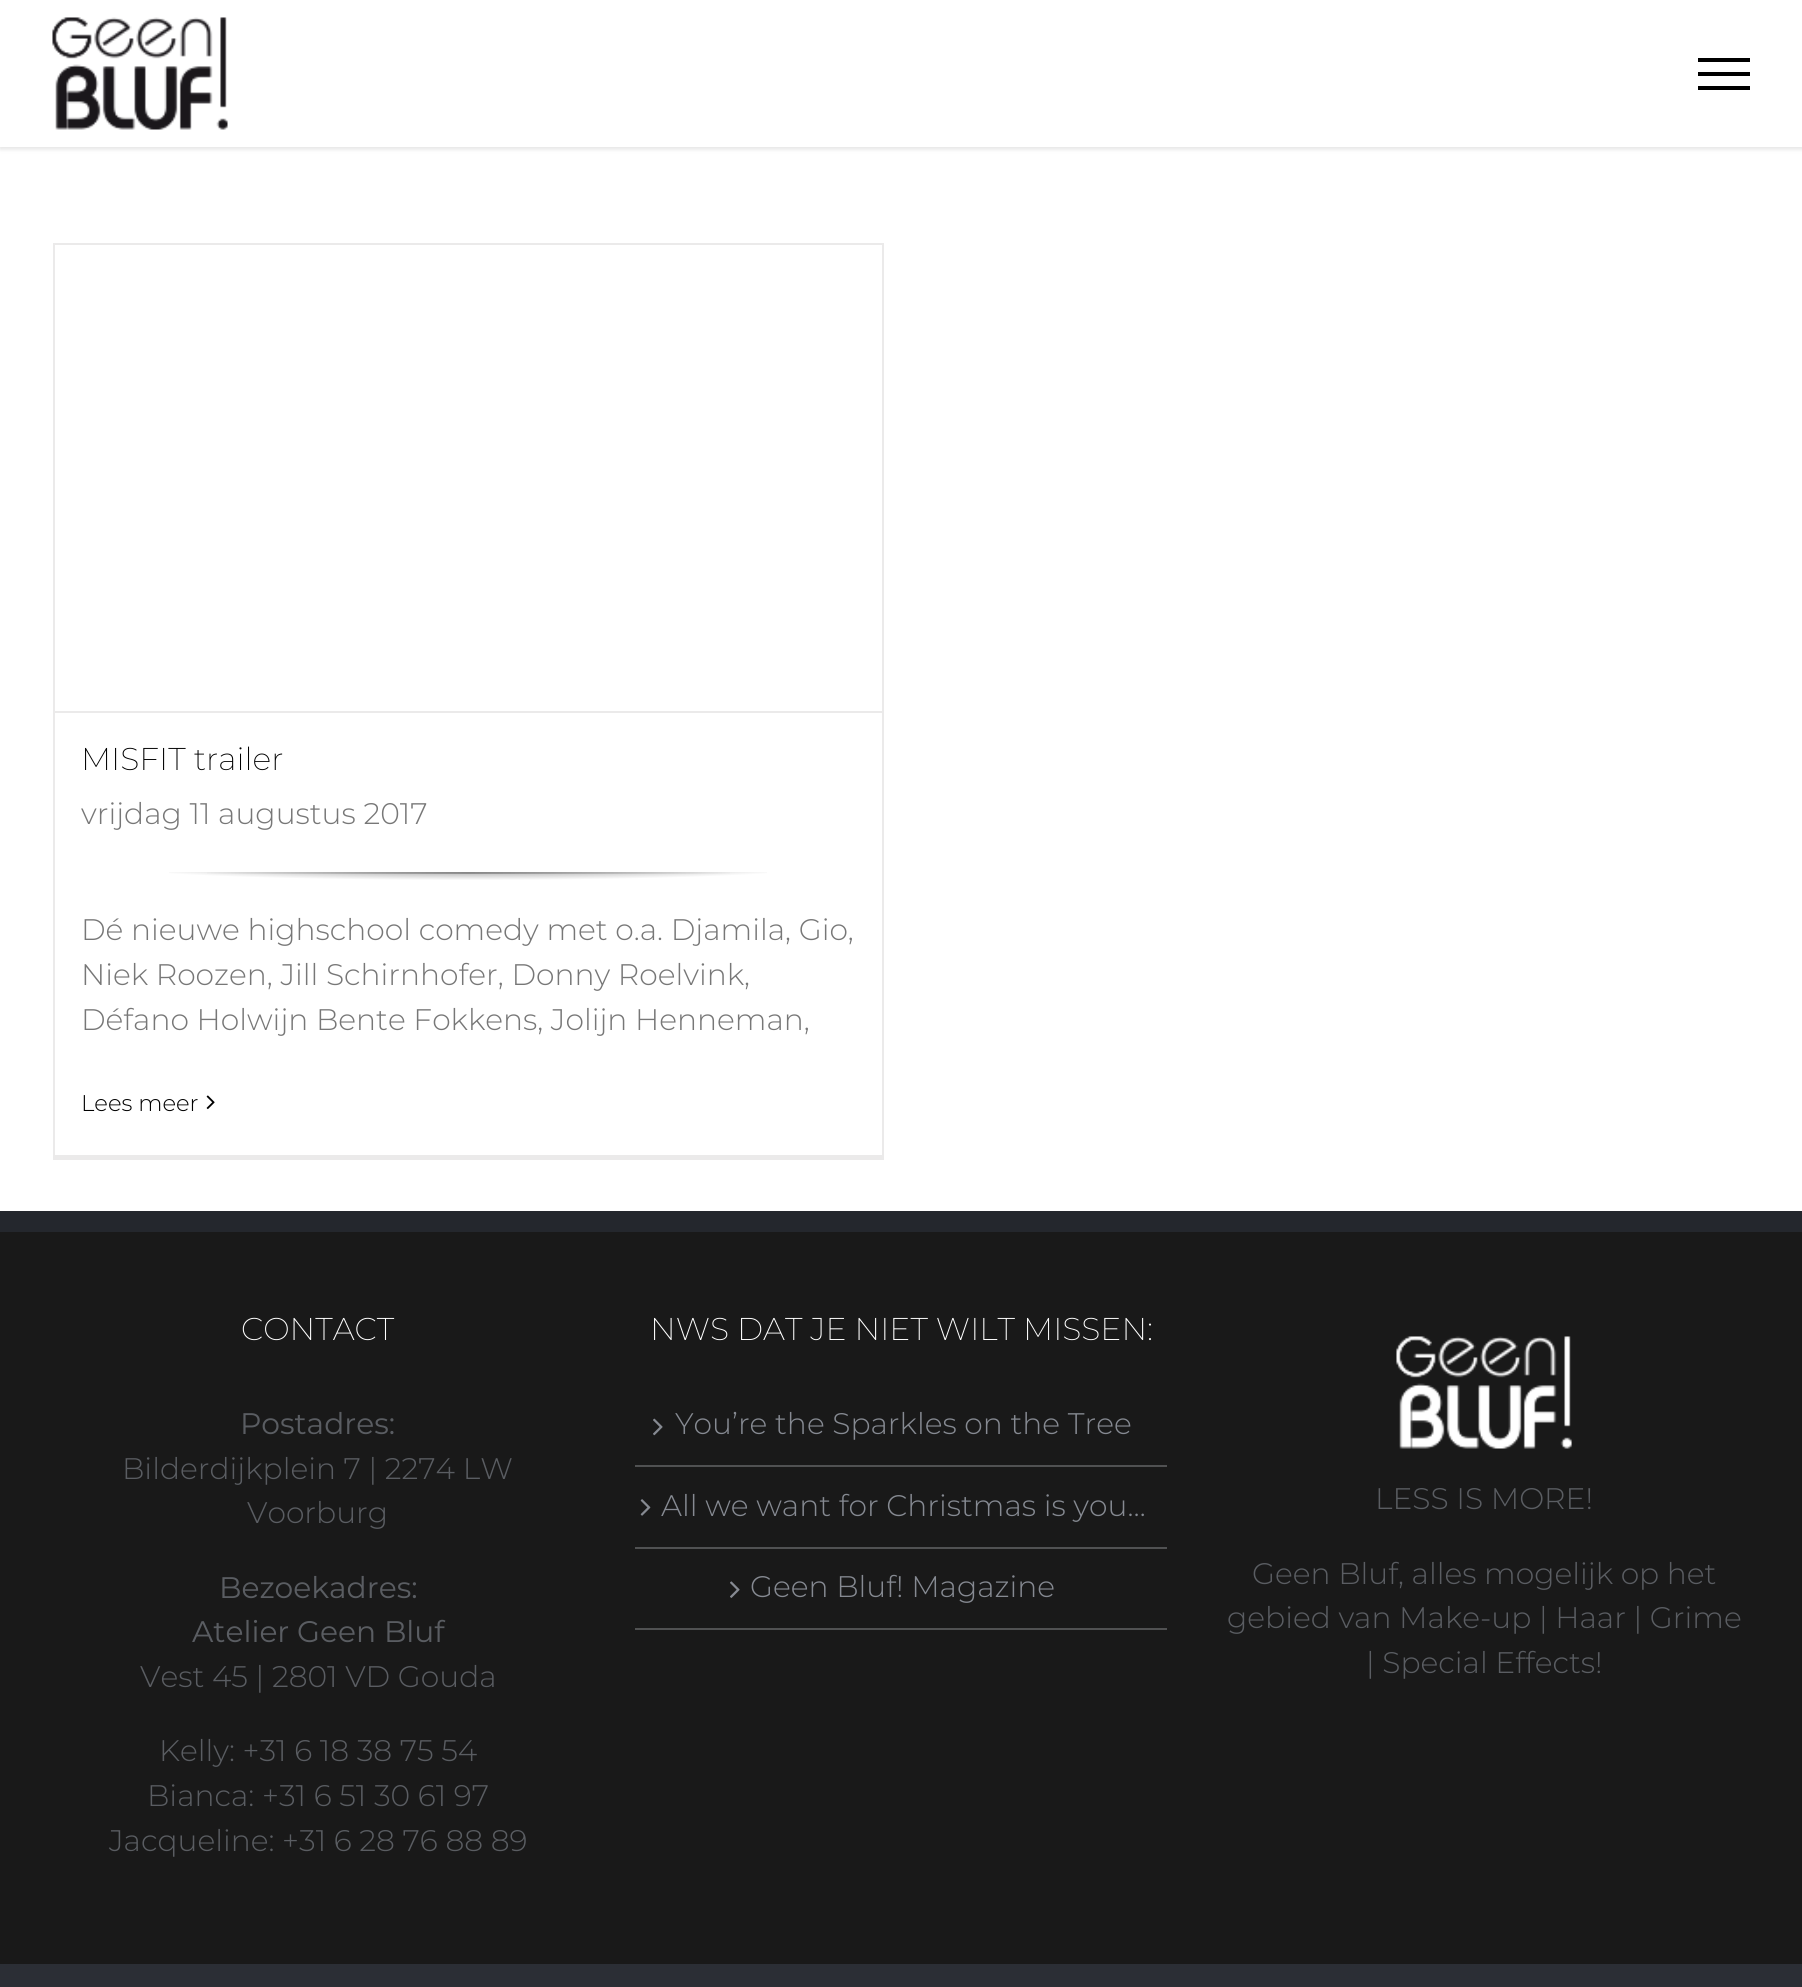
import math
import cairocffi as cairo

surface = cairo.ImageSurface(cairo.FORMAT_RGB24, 1802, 1987)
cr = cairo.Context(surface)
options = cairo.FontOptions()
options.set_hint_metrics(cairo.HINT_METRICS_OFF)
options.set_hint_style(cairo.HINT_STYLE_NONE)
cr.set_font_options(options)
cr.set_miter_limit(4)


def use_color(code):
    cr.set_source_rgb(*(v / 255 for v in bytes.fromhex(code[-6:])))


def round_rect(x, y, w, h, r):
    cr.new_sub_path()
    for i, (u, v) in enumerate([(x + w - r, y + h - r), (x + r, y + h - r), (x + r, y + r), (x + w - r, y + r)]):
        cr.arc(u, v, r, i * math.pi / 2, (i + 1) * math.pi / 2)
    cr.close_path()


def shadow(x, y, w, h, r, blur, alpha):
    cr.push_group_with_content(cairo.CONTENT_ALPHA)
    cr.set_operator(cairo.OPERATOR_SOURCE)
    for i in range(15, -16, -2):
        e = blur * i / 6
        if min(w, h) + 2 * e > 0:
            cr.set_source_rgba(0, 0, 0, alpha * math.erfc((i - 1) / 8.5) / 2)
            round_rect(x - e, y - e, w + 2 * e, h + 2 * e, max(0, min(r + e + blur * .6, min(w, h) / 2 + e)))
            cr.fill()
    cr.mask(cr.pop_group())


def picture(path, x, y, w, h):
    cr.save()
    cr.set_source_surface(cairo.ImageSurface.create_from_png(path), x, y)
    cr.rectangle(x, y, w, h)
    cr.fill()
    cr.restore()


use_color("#ffffff")
cr.paint()
use_color("#000000")
shadow(0, 2, 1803, 147, 0, 2.5, 0.12)
use_color("#ffffff")
cr.rectangle(0, 0, 1802, 147)
cr.fill()
picture("img1.png", 52, 17, 176, 113)
use_color("#000000")
cr.rectangle(1698, 58, 52, 4)
cr.fill()
cr.rectangle(1698, 72, 52, 4)
cr.fill()
cr.rectangle(1698, 86, 52, 4)
cr.fill()
use_color("#ebeaea")
cr.rectangle(53, 243, 831, 2)
cr.fill()
cr.rectangle(882, 243, 2, 917)
cr.fill()
cr.rectangle(53, 1155, 831, 5)
cr.fill()
cr.rectangle(53, 243, 2, 917)
cr.fill()
cr.rectangle(54, 711, 828, 2)
cr.fill()
cr.select_font_face("Montserrat ExtraLight")
cr.set_font_size(31.5)
use_color("#000000")
cr.move_to(81, 770)
cr.show_text("MISFIT trailer")
cr.select_font_face("Montserrat Light")
cr.set_font_size(29.75)
use_color("#777777")
cr.move_to(81, 824)
cr.show_text("vrijdag 11 augustus 2017")
gradient = cairo.LinearGradient(856, 872, 81, 872)
gradient.add_color_stop_rgba(0, 1, 1, 1, 1)
gradient.add_color_stop_rgba(0.15, 1, 1, 1, 1)
gradient.add_color_stop_rgba(0.5, 0.733, 0.733, 0.733, 1)
gradient.add_color_stop_rgba(0.85, 1, 1, 1, 1)
gradient.add_color_stop_rgba(1, 1, 1, 1, 1)
cr.set_source(gradient)
cr.rectangle(207, 872, 523, 2)
cr.fill()
gradient = cairo.RadialGradient(0, 0, 0, 0, 0, 1)
gradient.set_matrix(cairo.Matrix(1 / 548, 0, 0, 1 / 22, -1 * 468 / 548, -1 * 866 / 22))
gradient.add_color_stop_rgba(0, 0, 0, 0, 0.5)
gradient.add_color_stop_rgba(0.65, 0, 0, 0, 0)
cr.set_source(gradient)
cr.rectangle(169, 872, 598, 8)
cr.fill()
use_color("#777777")
cr.move_to(81, 940)
cr.show_text("Dé nieuwe highschool comedy met o.a. Djamila, Gio,")
cr.move_to(81, 985)
cr.show_text("Niek Roozen, Jill Schirnhofer, Donny Roelvink,")
cr.move_to(81, 1030)
cr.show_text("Défano Holwijn Bente Fokkens, Jolijn Henneman,")
cr.set_font_size(22.75)
use_color("#000000")
cr.move_to(81, 1111)
cr.show_text("Lees meer")
picture("img2.png", 206, 1095, 9, 15)
use_color("#191919")
cr.rectangle(0, 1232, 1802, 732)
cr.fill()
use_color("#24272d")
cr.rectangle(0, 1211, 1802, 21)
cr.fill()
cr.select_font_face("Montserrat ExtraLight")
cr.set_font_size(31.5)
use_color("#ffffff")
cr.move_to(241, 1340)
cr.show_text("CONTACT")
cr.select_font_face("Montserrat")
cr.set_font_size(29.75)
use_color("#5a5d62")
cr.move_to(240, 1434)
cr.show_text("Postadres:")
cr.select_font_face("Montserrat Light")
cr.move_to(122, 1479)
cr.show_text("Bilderdijkplein 7 | 2274 LW")
cr.move_to(247, 1523)
cr.show_text("Voorburg")
cr.select_font_face("Montserrat")
cr.move_to(219, 1598)
cr.show_text("Bezoekadres:")
cr.move_to(192, 1642)
cr.show_text("Atelier Geen Bluf")
cr.select_font_face("Montserrat Light")
cr.move_to(140, 1687)
cr.show_text("Vest 45 | 2801 VD Gouda")
cr.move_to(159, 1761)
cr.show_text("Kelly: +31 6 18 38 75 54")
cr.move_to(147, 1806)
cr.show_text("Bianca: +31 6 51 30 61 97")
cr.move_to(109, 1851)
cr.show_text("Jacqueline: +31 6 28 76 88 89")
cr.select_font_face("Montserrat ExtraLight")
cr.set_font_size(31.5)
use_color("#ffffff")
cr.move_to(650, 1340)
cr.show_text("NWS DAT JE NIET WILT MISSEN:")
use_color("#505152")
cr.rectangle(635, 1465, 532, 2)
cr.fill()
picture("img3.png", 653, 1418, 10, 18)
cr.select_font_face("Montserrat Light")
cr.set_font_size(29.75)
use_color("#868a92")
cr.move_to(675, 1434)
cr.show_text("You’re the Sparkles on the Tree")
use_color("#505152")
cr.rectangle(635, 1547, 532, 2)
cr.fill()
picture("img4.png", 640, 1499, 11, 17)
use_color("#868a92")
cr.move_to(661, 1516)
cr.show_text("All we want for Christmas is you…")
use_color("#505152")
cr.rectangle(635, 1628, 532, 2)
cr.fill()
picture("img5.png", 730, 1581, 10, 17)
use_color("#868a92")
cr.move_to(750, 1597)
cr.show_text("Geen Bluf! Magazine")
picture("img6.png", 1396, 1336, 176, 113)
use_color("#5a5d62")
cr.move_to(1375, 1509)
cr.show_text("LESS IS MORE!")
cr.move_to(1252, 1584)
cr.show_text("Geen Bluf, alles mogelijk op het")
cr.move_to(1227, 1628)
cr.show_text("gebied van Make-up | Haar | Grime")
cr.move_to(1366, 1673)
cr.show_text("| Special Effects!")
use_color("#2b2e35")
cr.rectangle(0, 1964, 1802, 23)
cr.fill()
surface.write_to_png("result.png")
